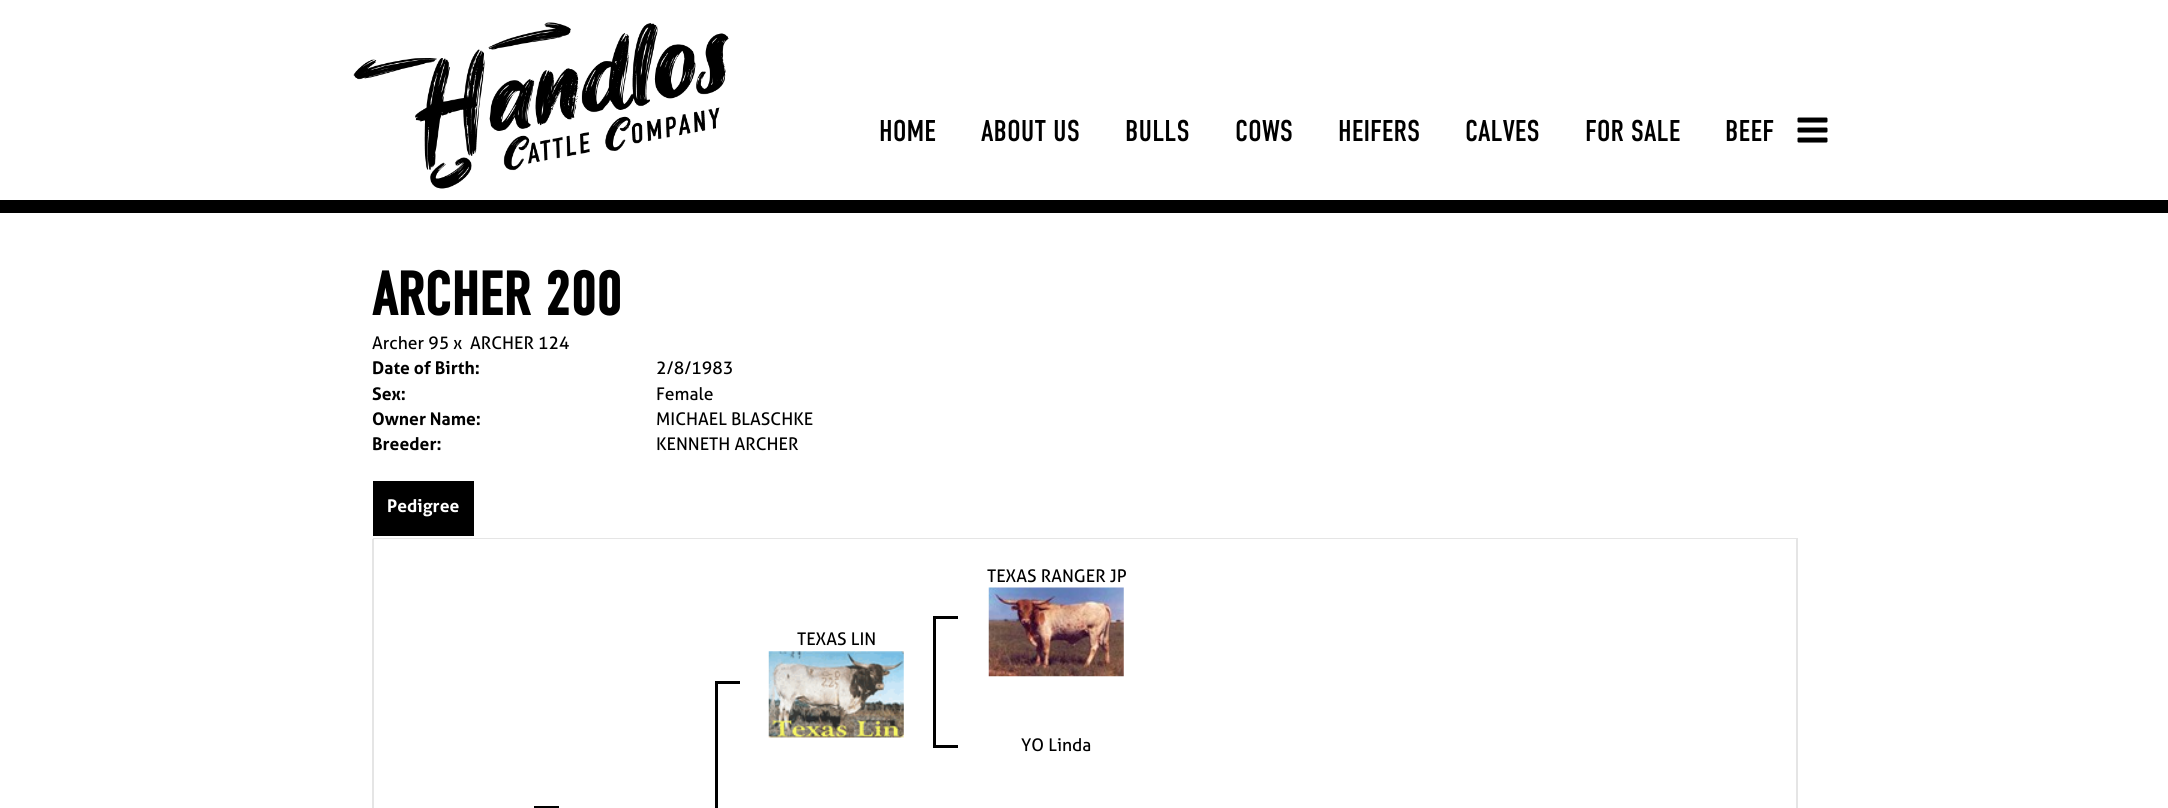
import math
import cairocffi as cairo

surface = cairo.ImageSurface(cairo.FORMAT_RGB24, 2168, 808)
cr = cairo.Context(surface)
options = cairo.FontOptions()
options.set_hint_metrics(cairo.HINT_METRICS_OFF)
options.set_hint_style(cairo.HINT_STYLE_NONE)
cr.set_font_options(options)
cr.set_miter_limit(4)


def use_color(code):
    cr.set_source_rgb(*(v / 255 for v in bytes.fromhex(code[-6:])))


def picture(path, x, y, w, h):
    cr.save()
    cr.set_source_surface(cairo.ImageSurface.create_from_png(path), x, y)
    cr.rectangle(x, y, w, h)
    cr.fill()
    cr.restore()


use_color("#ffffff")
cr.paint()
use_color("#000000")
cr.rectangle(0, 200, 2168, 13)
cr.fill()
picture("img1.png", 353, 22, 376, 167)
cr.select_font_face("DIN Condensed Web")
cr.set_font_size(30)
cr.move_to(879, 141)
cr.show_text("HOME")
cr.move_to(981, 141)
cr.show_text("ABOUT US")
cr.move_to(1125, 141)
cr.show_text("BULLS")
cr.move_to(1235, 141)
cr.show_text("COWS")
cr.move_to(1338, 141)
cr.show_text("HEIFERS")
cr.move_to(1465, 141)
cr.show_text("CALVES")
cr.move_to(1585, 141)
cr.show_text("FOR SALE")
cr.move_to(1725, 141)
cr.show_text("BEEF")
picture("img2.png", 1797, 117, 31, 26)
cr.select_font_face("DIN Condensed Web", cairo.FONT_SLANT_NORMAL, cairo.FONT_WEIGHT_BOLD)
cr.set_font_size(61.25)
cr.move_to(372, 315)
cr.show_text("ARCHER 200")
cr.select_font_face("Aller")
cr.set_font_size(17.5)
cr.move_to(372, 349)
cr.show_text("Archer 95 x")
cr.move_to(470, 349)
cr.show_text("ARCHER 124")
cr.select_font_face("Aller", cairo.FONT_SLANT_NORMAL, cairo.FONT_WEIGHT_BOLD)
cr.move_to(372, 374)
cr.show_text("Date of Birth:")
cr.select_font_face("Aller")
cr.move_to(656, 374)
cr.show_text("2/8/1983")
cr.select_font_face("Aller", cairo.FONT_SLANT_NORMAL, cairo.FONT_WEIGHT_BOLD)
cr.move_to(372, 400)
cr.show_text("Sex:")
cr.select_font_face("Aller")
cr.move_to(656, 400)
cr.show_text("Female")
cr.select_font_face("Aller", cairo.FONT_SLANT_NORMAL, cairo.FONT_WEIGHT_BOLD)
cr.move_to(372, 425)
cr.show_text("Owner Name:")
cr.select_font_face("Aller")
cr.move_to(656, 425)
cr.show_text("MICHAEL BLASCHKE")
cr.select_font_face("Aller", cairo.FONT_SLANT_NORMAL, cairo.FONT_WEIGHT_BOLD)
cr.move_to(372, 450)
cr.show_text("Breeder:")
cr.select_font_face("Aller")
cr.move_to(656, 450)
cr.show_text("KENNETH ARCHER")
use_color("#e5e5e5")
cr.rectangle(373, 538, 1425, 1)
cr.fill()
use_color("#000000")
cr.rectangle(373, 481, 101, 55)
cr.fill()
cr.select_font_face("Aller", cairo.FONT_SLANT_NORMAL, cairo.FONT_WEIGHT_BOLD)
use_color("#ffffff")
cr.move_to(387, 512)
cr.show_text("Pedigree")
use_color("#e5e5e5")
cr.new_path()
cr.move_to(1797, 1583)
cr.line_to(1796, 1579)
cr.line_to(1796, 539)
cr.line_to(1798, 539)
cr.line_to(1798, 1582)
cr.close_path()
cr.fill()
cr.new_path()
cr.move_to(374, 539)
cr.line_to(374, 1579)
cr.line_to(373, 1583)
cr.line_to(372, 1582)
cr.line_to(372, 539)
cr.close_path()
cr.fill()
cr.select_font_face("Aller")
use_color("#000000")
cr.move_to(987, 582)
cr.show_text("TEXAS RANGER JP")
picture("img3.png", 988, 587, 136, 90)
cr.move_to(797, 645)
cr.show_text("TEXAS LIN")
picture("img4.png", 768, 651, 136, 87)
cr.rectangle(933, 616, 25, 3)
cr.fill()
cr.rectangle(933, 745, 25, 3)
cr.fill()
cr.rectangle(933, 616, 3, 132)
cr.fill()
cr.rectangle(534, 806, 25, 2)
cr.fill()
cr.rectangle(715, 681, 25, 3)
cr.fill()
cr.rectangle(715, 681, 3, 127)
cr.fill()
cr.move_to(1021, 751)
cr.show_text("YO Linda")
surface.write_to_png("result.png")
